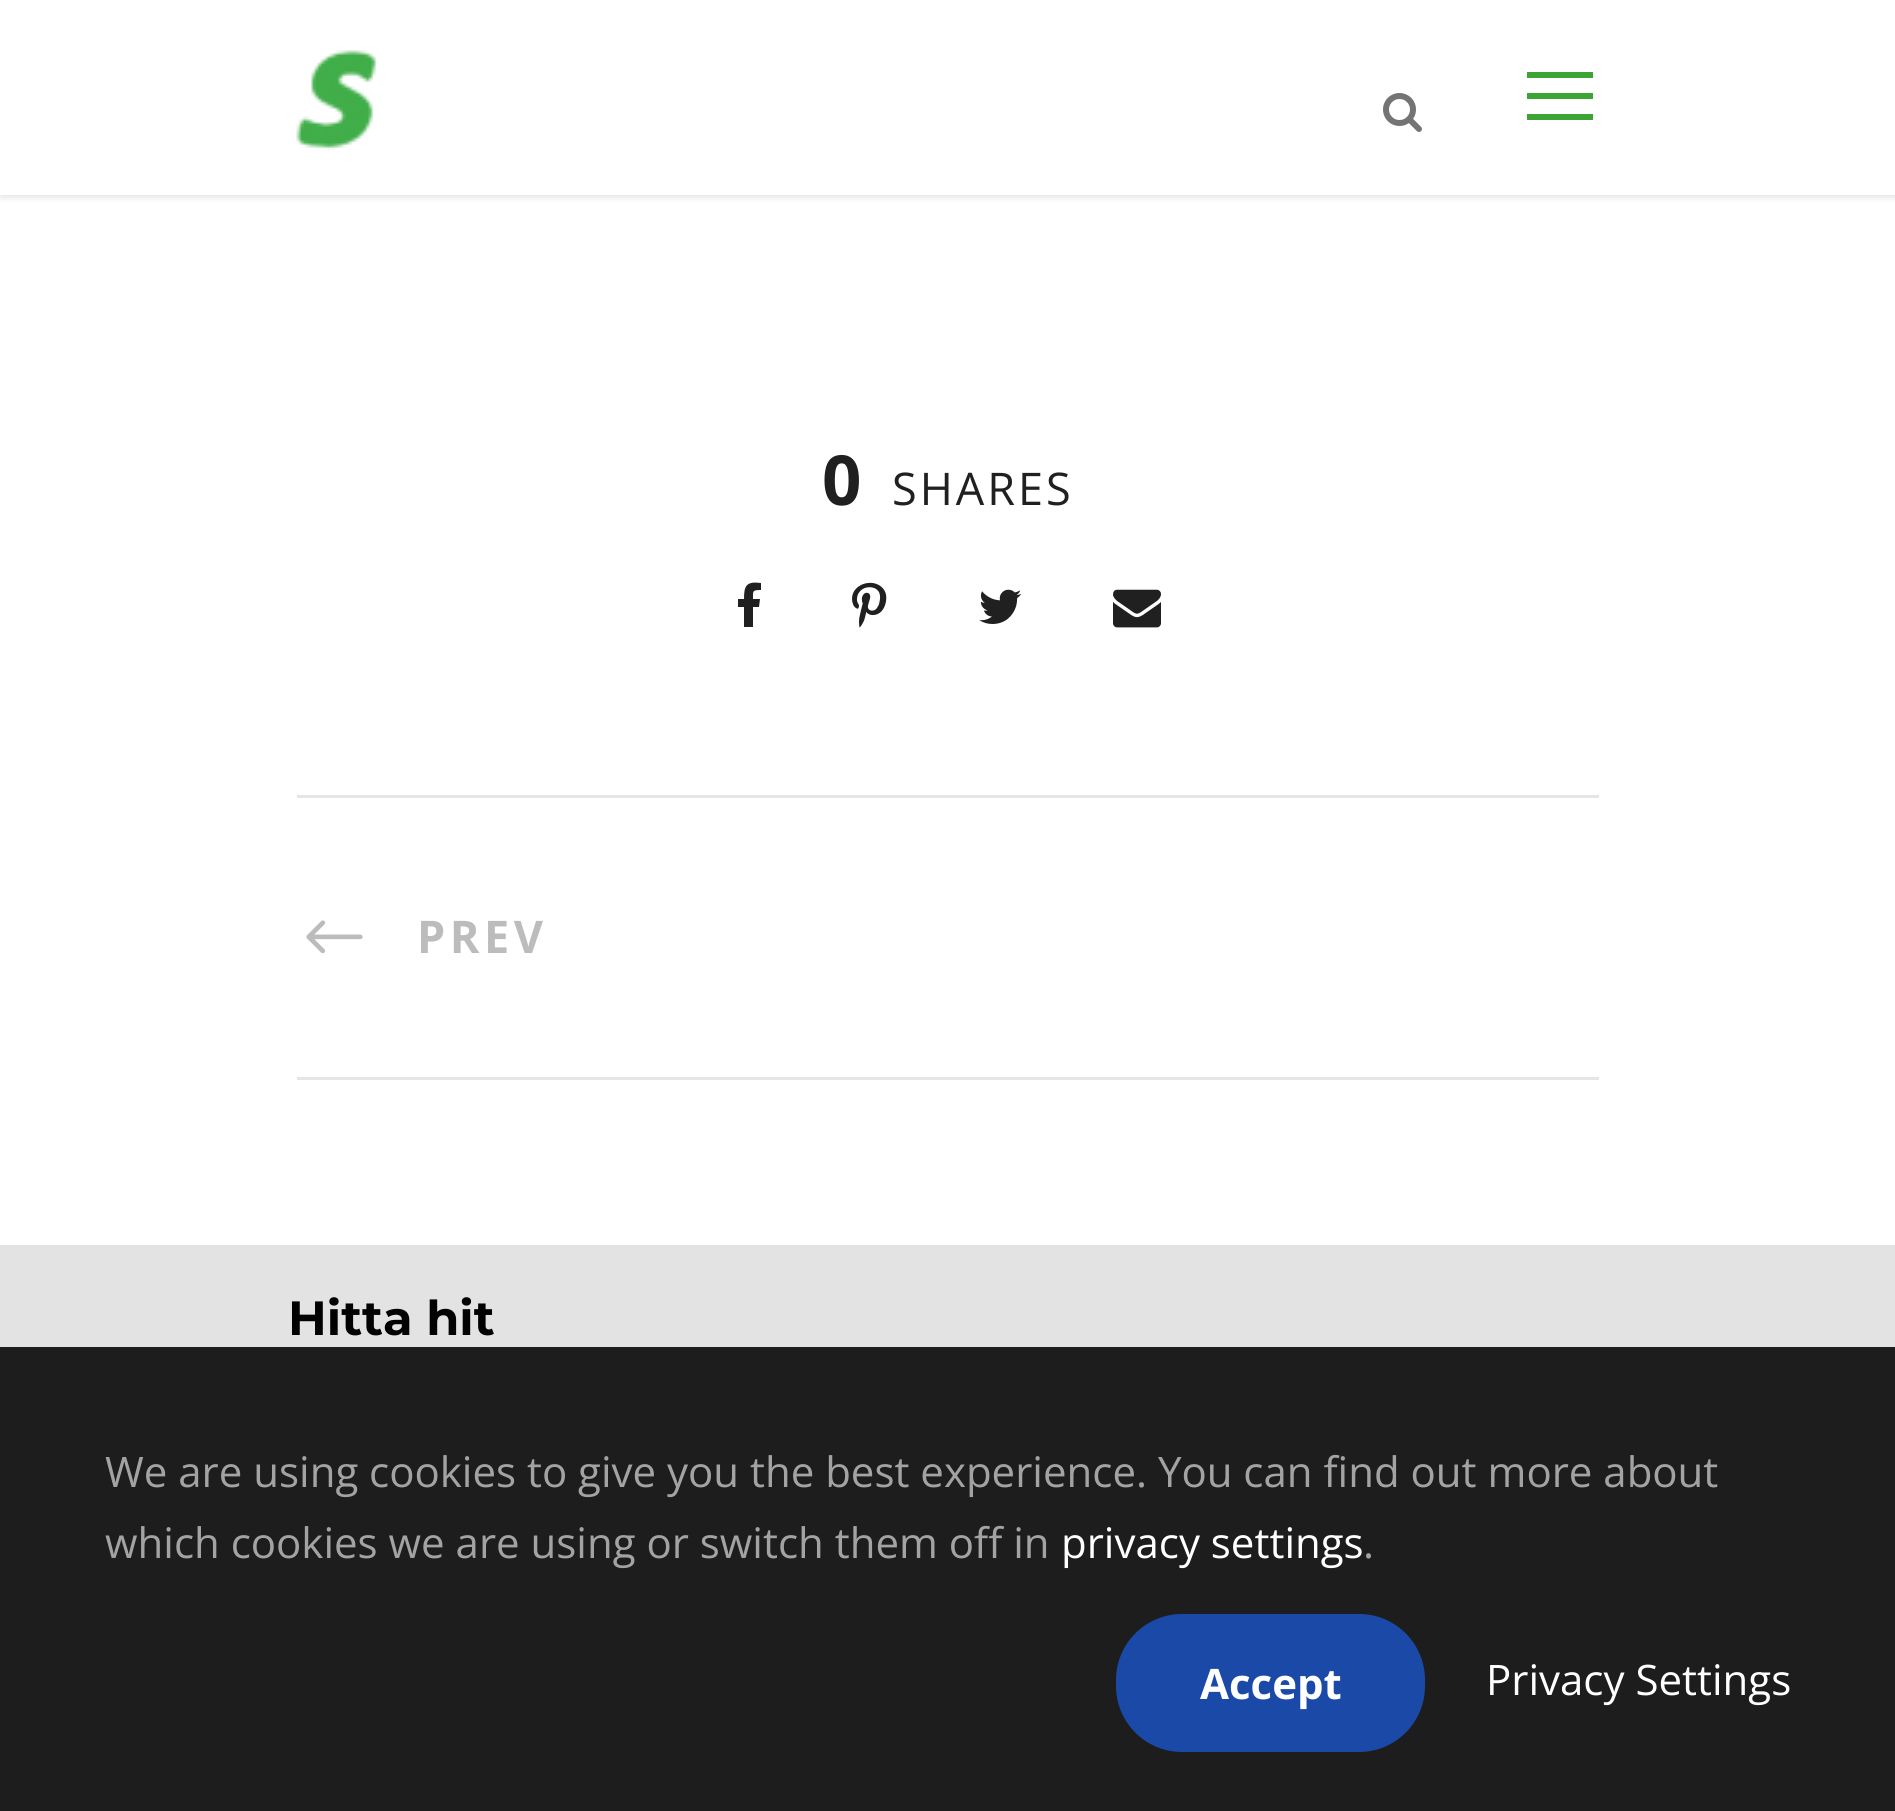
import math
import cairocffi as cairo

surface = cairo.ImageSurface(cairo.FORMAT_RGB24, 1895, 1811)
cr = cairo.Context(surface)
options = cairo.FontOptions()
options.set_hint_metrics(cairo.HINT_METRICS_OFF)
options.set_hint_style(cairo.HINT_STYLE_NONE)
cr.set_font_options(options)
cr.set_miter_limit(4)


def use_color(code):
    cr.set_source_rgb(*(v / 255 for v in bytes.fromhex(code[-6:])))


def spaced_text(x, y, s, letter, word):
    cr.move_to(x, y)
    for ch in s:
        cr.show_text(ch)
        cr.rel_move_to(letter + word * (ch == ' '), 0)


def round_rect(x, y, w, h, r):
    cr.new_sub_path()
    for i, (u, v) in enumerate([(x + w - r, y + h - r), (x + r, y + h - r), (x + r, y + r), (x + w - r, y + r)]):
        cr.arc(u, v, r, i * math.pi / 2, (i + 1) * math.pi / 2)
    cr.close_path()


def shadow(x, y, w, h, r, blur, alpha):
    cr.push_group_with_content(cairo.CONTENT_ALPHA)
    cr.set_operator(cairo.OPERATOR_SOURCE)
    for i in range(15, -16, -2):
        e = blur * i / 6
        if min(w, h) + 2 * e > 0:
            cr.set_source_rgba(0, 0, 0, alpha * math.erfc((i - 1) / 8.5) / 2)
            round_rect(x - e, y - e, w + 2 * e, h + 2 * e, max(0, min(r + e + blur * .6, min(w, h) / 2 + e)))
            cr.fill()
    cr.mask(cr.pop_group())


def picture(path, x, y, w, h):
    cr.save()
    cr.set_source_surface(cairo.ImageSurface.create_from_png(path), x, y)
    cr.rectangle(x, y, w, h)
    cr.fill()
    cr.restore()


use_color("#ffffff")
cr.paint()
use_color("#000000")
shadow(0, 3, 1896, 195, 0, 3, 0.1)
use_color("#ffffff")
cr.rectangle(0, 0, 1895, 195)
cr.fill()
picture("img1.png", 296, 50, 82, 101)
picture("img2.png", 1383, 93, 39, 39)
use_color("#3da436")
cr.rectangle(1527, 72, 66, 6)
cr.fill()
cr.rectangle(1527, 93, 66, 6)
cr.fill()
cr.rectangle(1527, 114, 66, 6)
cr.fill()
cr.select_font_face("Open Sans", cairo.FONT_SLANT_NORMAL, cairo.FONT_WEIGHT_BOLD)
cr.set_font_size(69)
use_color("#202020")
cr.move_to(822, 505)
cr.show_text("0")
cr.select_font_face("Open Sans")
cr.set_font_size(45)
spaced_text(892, 505, "SHARES", 3, 0)
cr.new_path()
cr.move_to(761, 583)
cr.line_to(761, 590)
cr.curve_to(752, 590, 753, 591, 753, 599)
cr.line_to(760, 599)
cr.line_to(759, 607)
cr.line_to(753, 607)
cr.line_to(753, 627)
cr.line_to(744, 627)
cr.line_to(744, 607)
cr.line_to(738, 607)
cr.line_to(738, 599)
cr.line_to(744, 599)
cr.curve_to(744, 586, 746, 581, 761, 583)
cr.close_path()
cr.fill()
picture("img3.png", 852, 582, 35, 46)
picture("img4.png", 979, 589, 43, 35)
picture("img5.png", 1113, 589, 48, 39)
use_color("#e6e6e6")
cr.rectangle(297, 795, 1302, 3)
cr.fill()
cr.rectangle(297, 1077, 1302, 3)
cr.fill()
picture("img6.png", 306, 920, 57, 34)
cr.select_font_face("Open Sans", cairo.FONT_SLANT_NORMAL, cairo.FONT_WEIGHT_BOLD)
use_color("#bcbcbc")
spaced_text(417, 953, "PREV", 4.5, 0)
use_color("#e3e3e3")
cr.rectangle(0, 1245, 1895, 102)
cr.fill()
cr.select_font_face("Montserrat", cairo.FONT_SLANT_NORMAL, cairo.FONT_WEIGHT_BOLD)
cr.set_font_size(48)
use_color("#010201")
cr.move_to(288, 1335)
cr.show_text("Hitta hit")
use_color("#1d1d1d")
cr.rectangle(0, 1347, 1895, 464)
cr.fill()
cr.select_font_face("Open Sans")
cr.set_font_size(42)
use_color("#a3a3a3")
cr.move_to(105, 1487)
cr.show_text("We are using cookies to give you the best experience. You can find out more about")
cr.move_to(105, 1558)
cr.show_text("which cookies we are using or switch them off in")
use_color("#ffffff")
cr.move_to(1061, 1558)
cr.show_text("privacy settings")
use_color("#a3a3a3")
cr.move_to(1363, 1558)
cr.show_text(".")
use_color("#1a49a8")
round_rect(1116, 1614, 309, 138, 66)
cr.fill()
cr.select_font_face("Open Sans", cairo.FONT_SLANT_NORMAL, cairo.FONT_WEIGHT_BOLD)
use_color("#ffffff")
cr.move_to(1200, 1699)
cr.show_text("Accept")
cr.select_font_face("Open Sans")
cr.move_to(1486, 1695)
cr.show_text("Privacy Settings")
surface.write_to_png("result.png")
